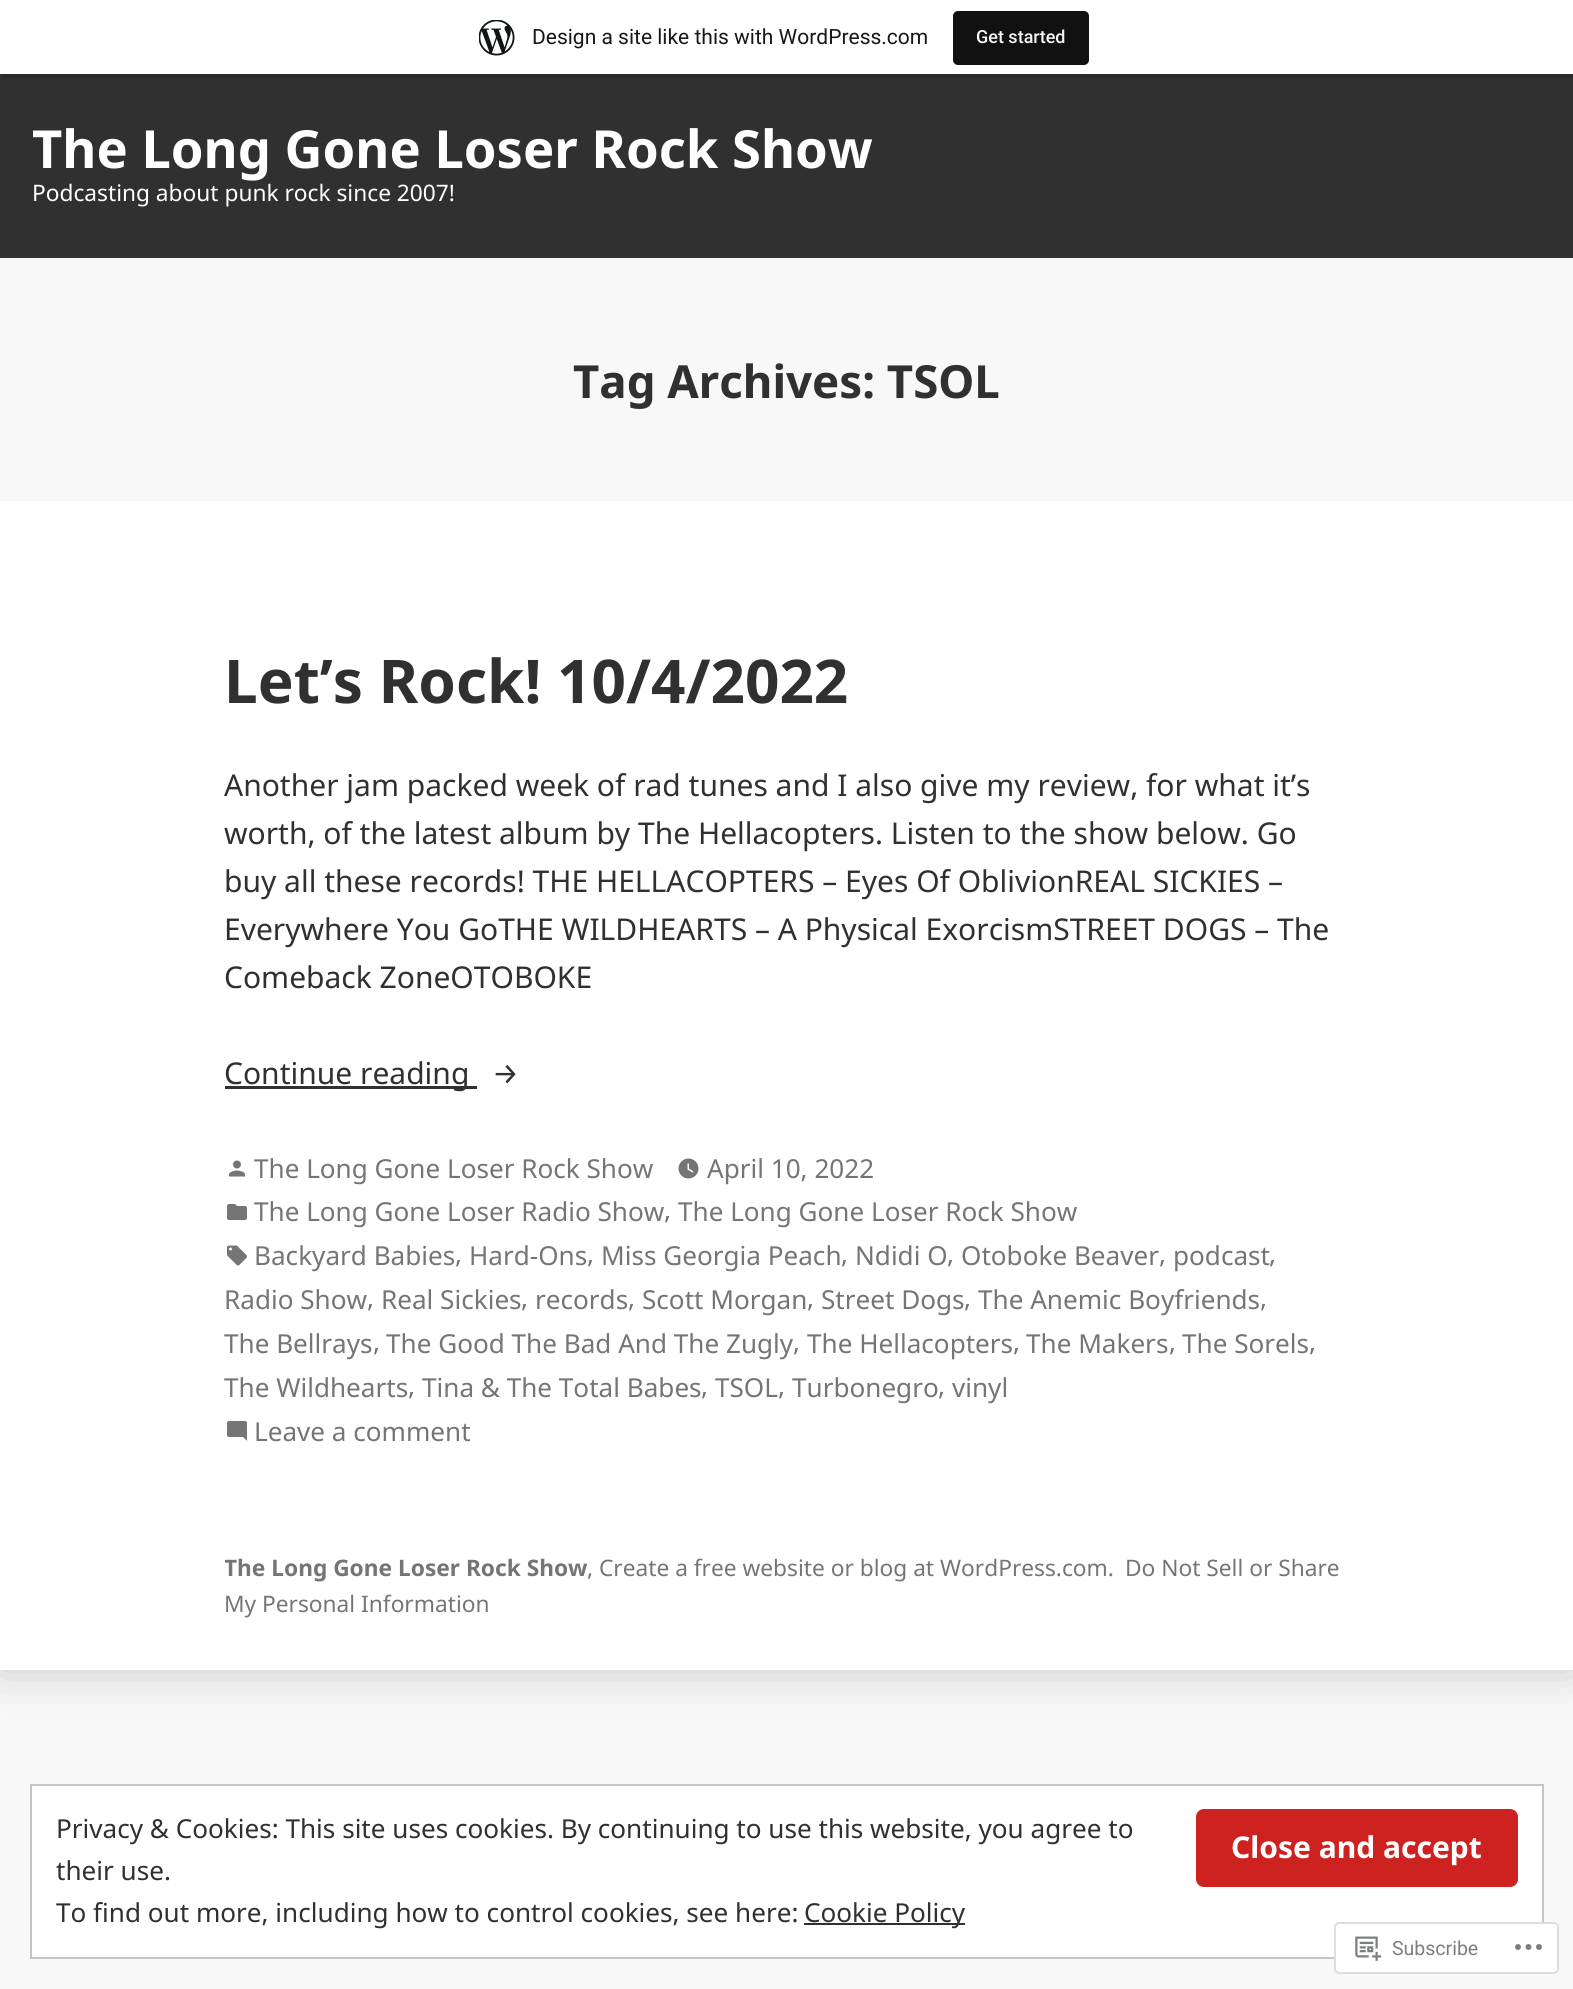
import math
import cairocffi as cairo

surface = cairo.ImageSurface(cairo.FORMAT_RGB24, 1573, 1989)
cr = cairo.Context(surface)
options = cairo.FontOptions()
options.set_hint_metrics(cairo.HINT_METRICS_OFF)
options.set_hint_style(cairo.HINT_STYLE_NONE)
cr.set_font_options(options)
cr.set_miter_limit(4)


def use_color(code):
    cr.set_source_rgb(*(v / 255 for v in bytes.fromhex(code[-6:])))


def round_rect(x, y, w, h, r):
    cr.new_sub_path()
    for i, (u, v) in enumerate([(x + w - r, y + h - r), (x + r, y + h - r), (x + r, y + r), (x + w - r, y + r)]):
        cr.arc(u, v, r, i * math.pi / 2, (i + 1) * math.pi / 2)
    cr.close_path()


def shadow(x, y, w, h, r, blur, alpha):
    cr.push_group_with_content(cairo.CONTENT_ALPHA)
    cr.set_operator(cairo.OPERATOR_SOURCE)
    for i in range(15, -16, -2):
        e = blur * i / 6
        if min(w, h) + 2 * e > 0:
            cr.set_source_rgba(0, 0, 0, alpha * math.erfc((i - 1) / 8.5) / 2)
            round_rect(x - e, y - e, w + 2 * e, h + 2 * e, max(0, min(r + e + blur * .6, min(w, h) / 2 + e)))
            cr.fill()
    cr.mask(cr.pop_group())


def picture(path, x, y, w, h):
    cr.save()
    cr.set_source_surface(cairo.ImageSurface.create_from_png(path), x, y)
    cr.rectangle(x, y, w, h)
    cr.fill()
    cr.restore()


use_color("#f8f8f8")
cr.paint()
use_color("#000000")
shadow(0, 74, 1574, 1596, 0, 22.5, 0.2)
use_color("#303030")
cr.rectangle(0, 74, 1573, 184)
cr.fill()
use_color("#000000")
shadow(0, 2, 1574, 73, 0, 1.5, 0.05)
use_color("#2b2b2b")
cr.new_path()
cr.move_to(2, 74)
cr.line_to(2, 78)
cr.line_to(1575, 78)
cr.line_to(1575, 5)
cr.line_to(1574, 5)
cr.line_to(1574, 74)
cr.close_path()
cr.fill()
use_color("#ffffff")
cr.rectangle(0, 0, 1573, 74)
cr.fill()
picture("img1.png", 479, 20, 36, 36)
cr.select_font_face("Roboto")
cr.set_font_size(21)
use_color("#171717")
cr.move_to(532, 44)
cr.show_text("Design a site like this with WordPress.com")
use_color("#111111")
round_rect(953, 11, 136, 54, 5)
cr.fill()
cr.select_font_face("Roboto Medium")
cr.set_font_size(18)
use_color("#f6f7f7")
cr.move_to(976, 43)
cr.show_text("Get started")
use_color("#ffffff")
cr.rectangle(0, 501, 1573, 1169)
cr.fill()
cr.select_font_face("Noto Sans", cairo.FONT_SLANT_NORMAL, cairo.FONT_WEIGHT_BOLD)
cr.set_font_size(52.5)
cr.move_to(32, 168)
cr.show_text("The Long Gone Loser Rock Show")
cr.select_font_face("Noto Sans")
cr.set_font_size(22.7)
cr.move_to(32, 201)
cr.show_text("Podcasting about punk rock since 2007!")
use_color("#f8f8f8")
cr.rectangle(0, 258, 1573, 243)
cr.fill()
cr.select_font_face("Noto Sans", cairo.FONT_SLANT_NORMAL, cairo.FONT_WEIGHT_BOLD)
cr.set_font_size(45.6)
use_color("#303030")
cr.move_to(573, 398)
cr.show_text("Tag Archives: TSOL")
cr.set_font_size(60.25)
cr.move_to(224, 703)
cr.show_text("Let’s Rock! 10/4/2022")
cr.select_font_face("Noto Sans")
cr.set_font_size(30)
cr.move_to(224, 796)
cr.show_text("Another jam packed week of rad tunes and I also give my review, for what it’s")
cr.move_to(224, 844)
cr.show_text("worth, of the latest album by The Hellacopters. Listen to the show below. Go")
cr.move_to(224, 892)
cr.show_text("buy all these records! THE HELLACOPTERS – Eyes Of OblivionREAL SICKIES –")
cr.move_to(224, 940)
cr.show_text("Everywhere You GoTHE WILDHEARTS – A Physical ExorcismSTREET DOGS – The")
cr.move_to(224, 988)
cr.show_text("Comeback ZoneOTOBOKE")
cr.rectangle(225, 1086, 252, 3)
cr.fill()
cr.move_to(224, 1084)
cr.show_text("Continue reading")
cr.select_font_face("Fira Sans")
cr.move_to(492, 1084)
cr.show_text("→")
picture("img2.png", 229, 1160, 16, 17)
cr.select_font_face("Noto Sans")
cr.set_font_size(26.1)
use_color("#757575")
cr.move_to(254, 1178)
cr.show_text("The Long Gone Loser Rock Show")
picture("img3.png", 678, 1158, 21, 21)
cr.move_to(707, 1178)
cr.show_text("April 10, 2022")
picture("img4.png", 227, 1204, 20, 16)
cr.move_to(254, 1221)
cr.show_text("The Long Gone Loser Radio Show")
cr.move_to(664, 1219)
cr.show_text(",")
cr.move_to(678, 1221)
cr.show_text("The Long Gone Loser Rock Show")
picture("img5.png", 227, 1245, 20, 21)
cr.move_to(254, 1265)
cr.show_text("Backyard Babies")
cr.move_to(455, 1263)
cr.show_text(",")
cr.move_to(469, 1265)
cr.show_text("Hard-Ons")
cr.move_to(587, 1263)
cr.show_text(",")
cr.move_to(601, 1265)
cr.show_text("Miss Georgia Peach")
cr.move_to(841, 1263)
cr.show_text(",")
cr.move_to(855, 1265)
cr.show_text("Ndidi O")
cr.move_to(947, 1263)
cr.show_text(",")
cr.move_to(961, 1265)
cr.show_text("Otoboke Beaver")
cr.move_to(1159, 1263)
cr.show_text(",")
cr.move_to(1173, 1265)
cr.show_text("podcast")
cr.move_to(1269, 1263)
cr.show_text(",")
cr.move_to(224, 1309)
cr.show_text("Radio Show")
cr.move_to(367, 1307)
cr.show_text(",")
cr.move_to(381, 1309)
cr.show_text("Real Sickies")
cr.move_to(521, 1307)
cr.show_text(",")
cr.move_to(535, 1309)
cr.show_text("records")
cr.move_to(628, 1307)
cr.show_text(",")
cr.move_to(642, 1309)
cr.show_text("Scott Morgan")
cr.move_to(807, 1307)
cr.show_text(",")
cr.move_to(821, 1309)
cr.show_text("Street Dogs")
cr.move_to(964, 1307)
cr.show_text(",")
cr.move_to(978, 1309)
cr.show_text("The Anemic Boyfriends")
cr.move_to(1260, 1307)
cr.show_text(",")
cr.move_to(224, 1353)
cr.show_text("The Bellrays")
cr.move_to(373, 1351)
cr.show_text(",")
cr.move_to(386, 1353)
cr.show_text("The Good The Bad And The Zugly")
cr.move_to(793, 1351)
cr.show_text(",")
cr.move_to(807, 1353)
cr.show_text("The Hellacopters")
cr.move_to(1013, 1351)
cr.show_text(",")
cr.move_to(1026, 1353)
cr.show_text("The Makers")
cr.move_to(1169, 1351)
cr.show_text(",")
cr.move_to(1182, 1353)
cr.show_text("The Sorels")
cr.move_to(1309, 1351)
cr.show_text(",")
cr.move_to(224, 1397)
cr.show_text("The Wildhearts")
cr.move_to(408, 1395)
cr.show_text(",")
cr.move_to(422, 1397)
cr.show_text("Tina & The Total Babes")
cr.move_to(701, 1395)
cr.show_text(",")
cr.move_to(715, 1397)
cr.show_text("TSOL")
cr.move_to(778, 1395)
cr.show_text(",")
cr.move_to(792, 1397)
cr.show_text("Turbonegro")
cr.move_to(938, 1395)
cr.show_text(",")
cr.move_to(952, 1397)
cr.show_text("vinyl")
picture("img6.png", 227, 1421, 20, 20)
cr.move_to(254, 1441)
cr.show_text("Leave a comment")
cr.save()
cr.rectangle(225, 1500, 1125, 170)
cr.clip()
cr.select_font_face("Noto Sans", cairo.FONT_SLANT_NORMAL, cairo.FONT_WEIGHT_BOLD)
cr.set_font_size(22.7)
cr.move_to(224, 1576)
cr.show_text("The Long Gone Loser Rock Show")
cr.restore()
cr.set_font_size(22.7)
cr.move_to(587, 1576)
cr.show_text(", Create a free website or blog at WordPress.com.")
cr.move_to(1125, 1576)
cr.show_text("Do Not Sell or Share")
cr.move_to(224, 1612)
cr.show_text("My Personal Information")
use_color("#ffffff")
cr.rectangle(31, 1785, 1512, 173)
cr.fill_preserve()
use_color("#c5c5c5")
cr.stroke()
cr.set_font_size(26.1)
use_color("#303030")
cr.move_to(56, 1838)
cr.show_text("Privacy & Cookies: This site uses cookies. By continuing to use this website, you agree to")
use_color("#cd2220")
round_rect(1196, 1809, 322, 78, 8)
cr.fill()
cr.select_font_face("Noto Sans", cairo.FONT_SLANT_NORMAL, cairo.FONT_WEIGHT_BOLD)
cr.set_font_size(30)
use_color("#ffffff")
cr.move_to(1231, 1858)
cr.show_text("Close and accept")
cr.select_font_face("Noto Sans")
cr.set_font_size(26.1)
use_color("#303030")
cr.move_to(56, 1880)
cr.show_text("their use.")
cr.move_to(56, 1922)
cr.show_text("To find out more, including how to control cookies, see here:")
cr.rectangle(804, 1923, 161, 2)
cr.fill()
cr.move_to(804, 1922)
cr.show_text("Cookie Policy")
cr.set_source_rgba(1, 1, 1, 0.98)
round_rect(1334, 1922, 225, 52, 5)
cr.fill()
round_rect(1335, 1923, 223, 50, 4)
cr.set_source_rgba(0.863, 0.863, 0.871, 0.98)
cr.stroke()
picture("img7.png", 1355, 1936, 27, 25)
cr.select_font_face("Roboto")
cr.set_font_size(19.5)
use_color("#7b7f85")
cr.move_to(1392, 1955)
cr.show_text("Subscribe")
picture("img8.png", 1515, 1944, 27, 6)
surface.write_to_png("result.png")
